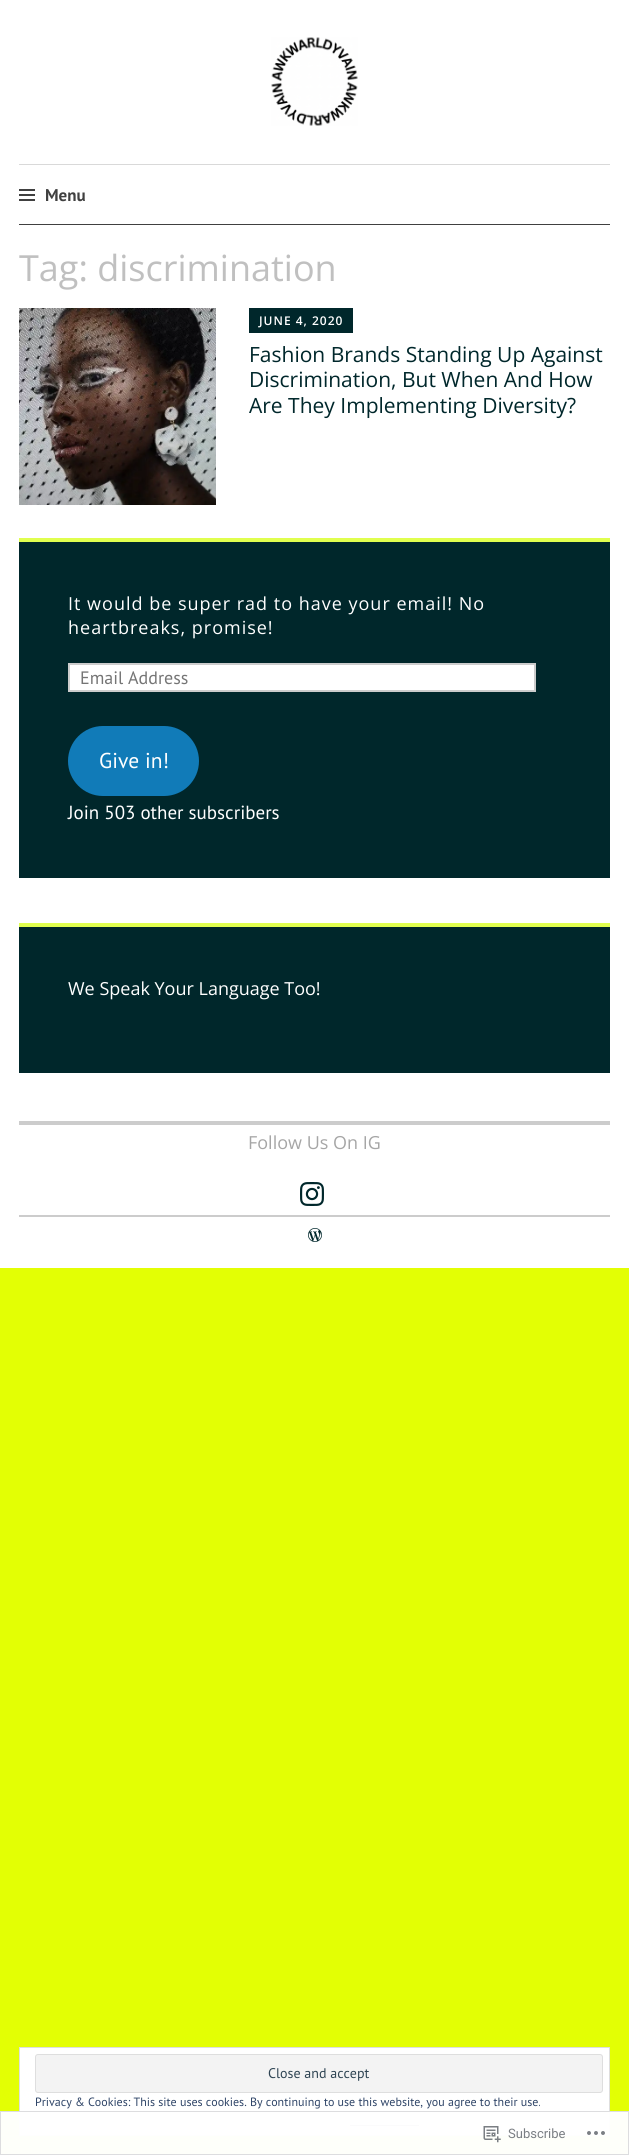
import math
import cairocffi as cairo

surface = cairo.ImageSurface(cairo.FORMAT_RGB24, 629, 2155)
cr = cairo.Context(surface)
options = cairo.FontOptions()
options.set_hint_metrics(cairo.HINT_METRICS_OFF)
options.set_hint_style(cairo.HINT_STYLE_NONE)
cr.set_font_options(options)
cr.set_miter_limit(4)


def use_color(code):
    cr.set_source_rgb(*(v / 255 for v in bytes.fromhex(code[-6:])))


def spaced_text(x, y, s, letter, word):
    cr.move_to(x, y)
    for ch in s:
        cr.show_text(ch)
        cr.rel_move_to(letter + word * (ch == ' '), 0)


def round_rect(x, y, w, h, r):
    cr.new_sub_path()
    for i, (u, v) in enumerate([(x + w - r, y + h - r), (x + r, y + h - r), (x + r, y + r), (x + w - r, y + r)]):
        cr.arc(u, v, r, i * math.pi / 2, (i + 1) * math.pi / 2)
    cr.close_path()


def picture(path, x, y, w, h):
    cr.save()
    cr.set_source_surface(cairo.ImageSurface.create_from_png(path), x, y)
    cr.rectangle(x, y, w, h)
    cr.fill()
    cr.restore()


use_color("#e3ff04")
cr.paint()
use_color("#ffffff")
cr.rectangle(0, 0, 629, 1268)
cr.fill()
picture("img1.png", 271, 37, 87, 89)
use_color("#d9d9d9")
cr.rectangle(19, 164, 591, 1)
cr.fill()
use_color("#404040")
cr.rectangle(19, 224, 591, 1)
cr.fill()
picture("img2.png", 19, 189, 16, 12)
cr.select_font_face("PT Sans", cairo.FONT_SLANT_NORMAL, cairo.FONT_WEIGHT_BOLD)
cr.set_font_size(17)
cr.move_to(45, 201)
cr.show_text("Menu")
cr.select_font_face("Open Sans")
cr.set_font_size(36)
use_color("#c0c0c0")
cr.move_to(19, 281)
cr.show_text("Tag: discrimination")
picture("img3.png", 19, 308, 197, 197)
use_color("#00272b")
cr.rectangle(249, 308, 104, 25)
cr.fill()
cr.select_font_face("Open Sans SemiBold")
cr.set_font_size(12)
use_color("#ffffff")
spaced_text(259, 325, "JUNE 4, 2020", 1, 0)
cr.select_font_face("Open Sans")
cr.set_font_size(21)
use_color("#00272b")
cr.move_to(249, 362)
cr.show_text("Fashion Brands Standing Up Against")
cr.move_to(249, 387)
cr.show_text("Discrimination, But When And How")
cr.move_to(249, 413)
cr.show_text("Are They Implementing Diversity?")
cr.rectangle(19, 542, 591, 336)
cr.fill()
use_color("#e0ff4f")
cr.rectangle(19, 538, 591, 4)
cr.fill()
cr.set_font_size(18)
use_color("#ffffff")
spaced_text(68, 610, "It would be super rad to have your email! No", 1, 0)
spaced_text(68, 634, "heartbreaks, promise!", 1, 0)
cr.rectangle(69, 664, 466, 27)
cr.fill_preserve()
use_color("#cccccc")
cr.stroke()
cr.select_font_face("PT Sans")
use_color("#757575")
cr.move_to(80, 684)
cr.show_text("Email Address")
use_color("#117bb8")
round_rect(68, 726, 131, 70, 35)
cr.fill()
cr.set_font_size(21.5)
use_color("#ffffff")
cr.move_to(99, 768)
cr.show_text("Give in!")
cr.set_font_size(19)
cr.move_to(68, 819)
cr.show_text("Join 503 other subscribers")
use_color("#00272b")
cr.rectangle(19, 927, 591, 146)
cr.fill()
use_color("#e0ff4f")
cr.rectangle(19, 923, 591, 4)
cr.fill()
cr.select_font_face("Open Sans")
cr.set_font_size(18)
use_color("#ffffff")
cr.move_to(68, 995)
cr.show_text("We Speak Your Language Too!")
use_color("#cccccc")
cr.rectangle(19, 1121, 591, 4)
cr.fill()
use_color("#a6a6a6")
cr.move_to(248, 1149)
cr.show_text("Follow Us On IG")
picture("img4.png", 300, 1182, 24, 24)
use_color("#cccccc")
cr.rectangle(19, 1215, 591, 2)
cr.fill()
picture("img5.png", 308, 1228, 14, 14)
use_color("#ffffff")
cr.rectangle(19.5, 2047.5, 590, 88)
cr.fill_preserve()
use_color("#dedede")
cr.set_line_width(1)
cr.stroke()
use_color("#f3f3f3")
round_rect(35.5, 2054.5, 567, 38, 2.5)
cr.fill_preserve()
use_color("#dedede")
cr.stroke()
cr.select_font_face("PT Sans")
cr.set_font_size(14)
use_color("#2e4453")
cr.move_to(268, 2078)
cr.show_text("Close and accept")
cr.set_font_size(12)
use_color("#2e4467")
cr.move_to(35, 2106)
cr.show_text("Privacy & Cookies: This site uses cookies. By continuing to use this website, you agree to their use.")
cr.rectangle(350, 2125, 69, 1)
cr.fill()
cr.set_source_rgba(1, 1, 1, 0.98)
cr.rectangle(0, 2111, 629, 44)
cr.fill()
cr.rectangle(0.5, 2111.5, 628, 43)
cr.set_source_rgba(0.863, 0.863, 0.871, 0.98)
cr.stroke()
picture("img6.png", 483, 2126, 18, 17)
cr.select_font_face("Roboto")
cr.set_font_size(13)
use_color("#7b7f84")
cr.move_to(508, 2138)
cr.show_text("Subscribe")
picture("img7.png", 587, 2131, 18, 4)
surface.write_to_png("result.png")
